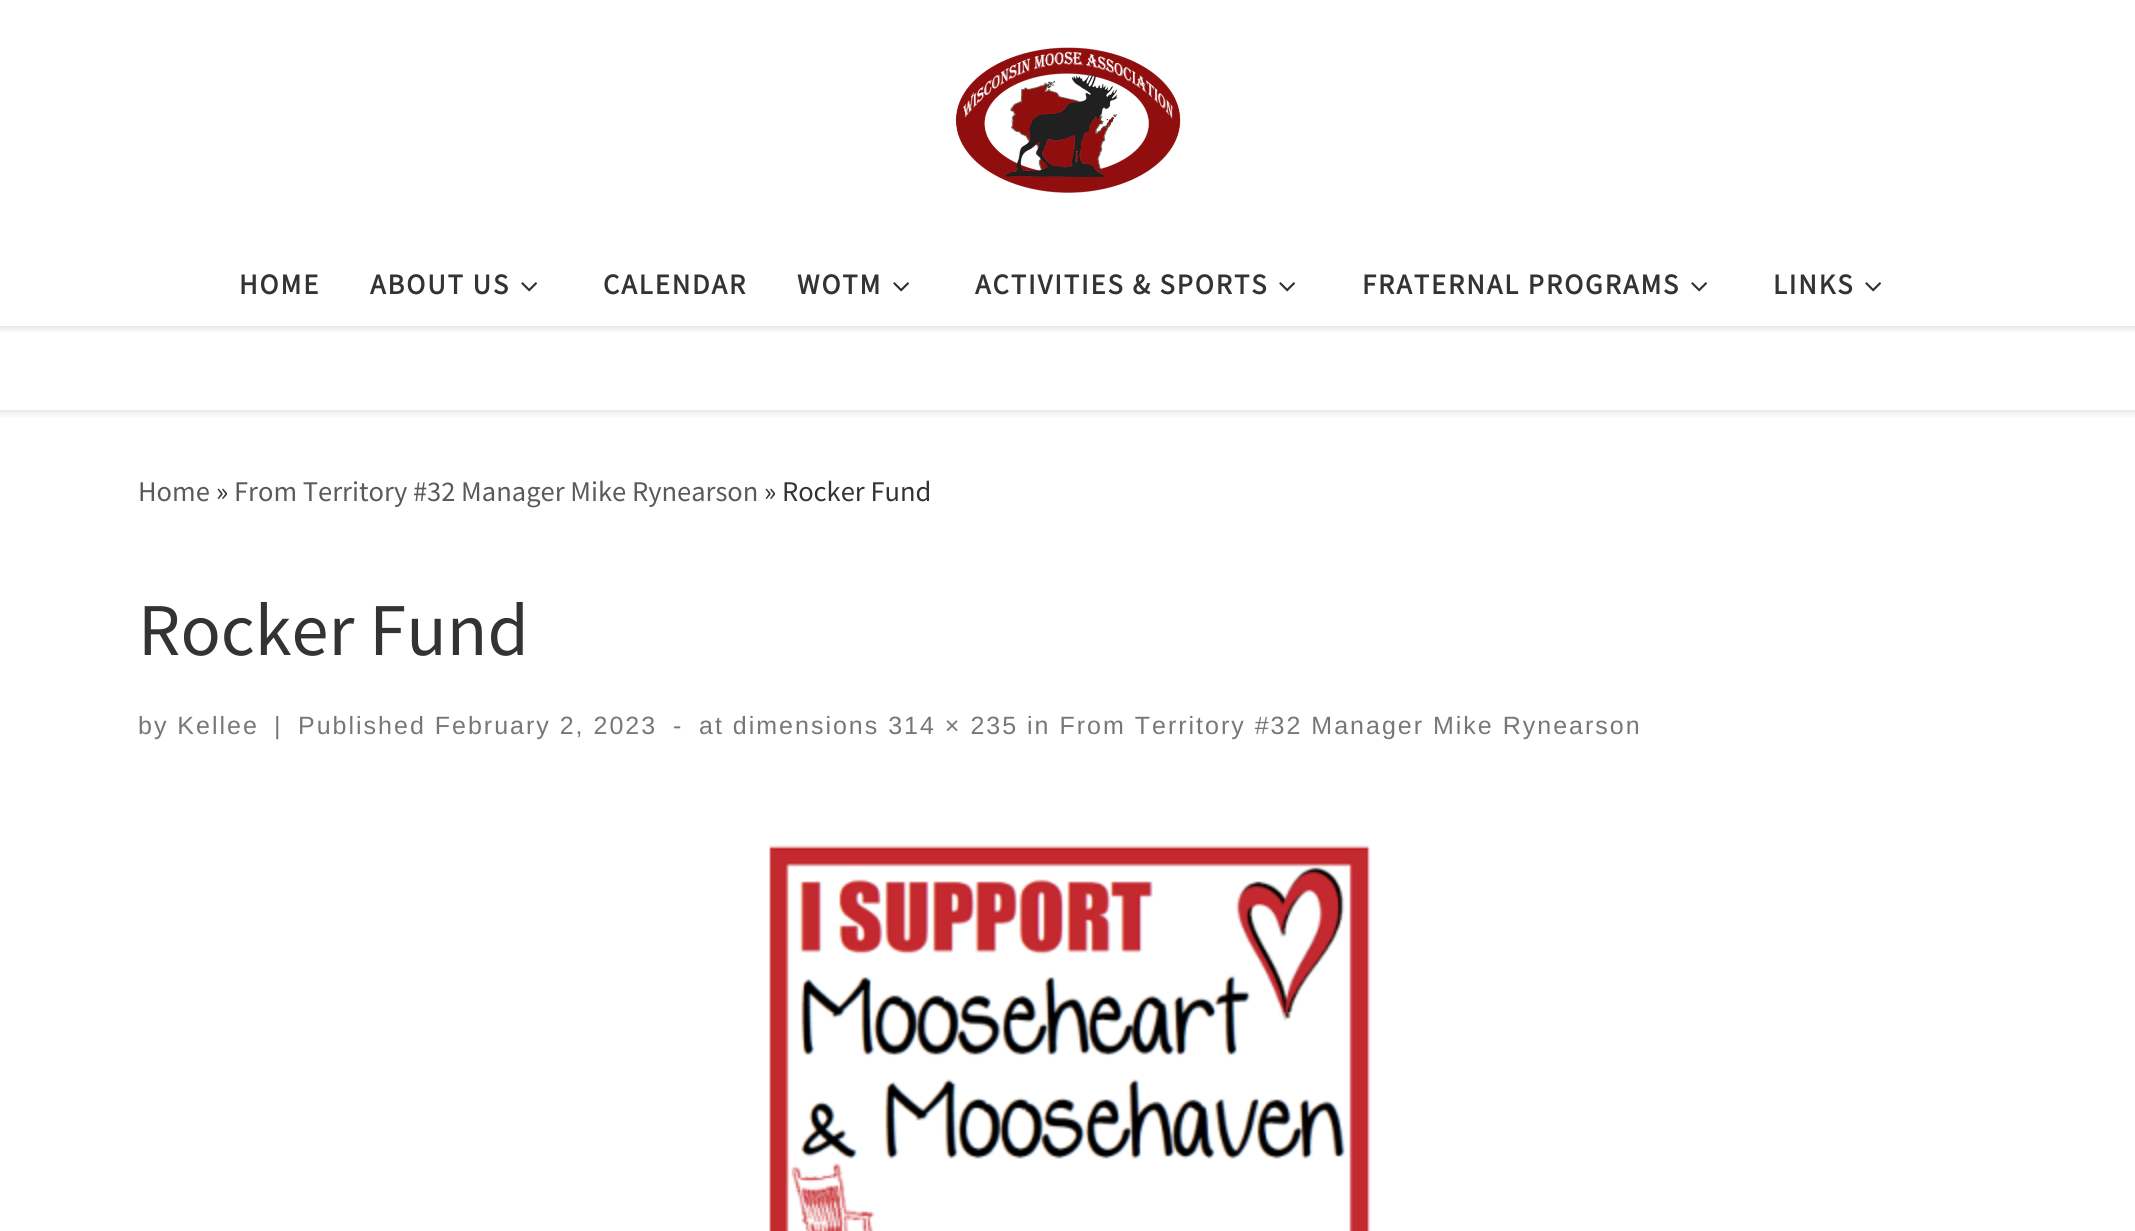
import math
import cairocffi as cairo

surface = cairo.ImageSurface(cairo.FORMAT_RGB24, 2135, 1231)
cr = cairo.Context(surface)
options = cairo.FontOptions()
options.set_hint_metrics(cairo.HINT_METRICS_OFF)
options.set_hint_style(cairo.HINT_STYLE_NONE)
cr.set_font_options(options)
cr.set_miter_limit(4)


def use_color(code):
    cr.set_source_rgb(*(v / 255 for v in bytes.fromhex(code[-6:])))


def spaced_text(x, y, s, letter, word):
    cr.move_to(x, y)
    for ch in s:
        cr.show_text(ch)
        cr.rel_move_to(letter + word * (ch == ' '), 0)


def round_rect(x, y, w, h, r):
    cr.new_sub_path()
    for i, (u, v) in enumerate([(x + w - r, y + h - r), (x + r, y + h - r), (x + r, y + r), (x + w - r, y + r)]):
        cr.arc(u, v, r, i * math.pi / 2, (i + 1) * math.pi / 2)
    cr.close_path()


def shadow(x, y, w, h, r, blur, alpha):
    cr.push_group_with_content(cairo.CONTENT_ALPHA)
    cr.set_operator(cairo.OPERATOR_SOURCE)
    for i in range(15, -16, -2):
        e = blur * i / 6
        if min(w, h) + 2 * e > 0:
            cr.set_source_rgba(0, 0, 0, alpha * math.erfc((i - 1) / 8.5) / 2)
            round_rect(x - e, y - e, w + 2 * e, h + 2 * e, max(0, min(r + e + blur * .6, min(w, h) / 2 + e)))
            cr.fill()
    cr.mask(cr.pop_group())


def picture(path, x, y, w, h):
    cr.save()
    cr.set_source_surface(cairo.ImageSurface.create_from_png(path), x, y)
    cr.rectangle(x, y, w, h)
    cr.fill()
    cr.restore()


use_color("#ffffff")
cr.paint()
cr.save()
cr.rectangle(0, 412, 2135, 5)
cr.clip()
use_color("#666666")
shadow(0, 4, 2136, 412, 0, 2, 0.08)
cr.restore()
use_color("#ececec")
cr.rectangle(0, 410, 2135, 2)
cr.fill()
cr.save()
cr.rectangle(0, 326, 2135, 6)
cr.clip()
use_color("#000000")
shadow(0, 0, 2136, 326, 0, 5, 0.2)
cr.restore()
picture("img1.png", 955, 47, 226, 146)
cr.select_font_face("Source Sans Pro", cairo.FONT_SLANT_NORMAL, cairo.FONT_WEIGHT_BOLD)
cr.set_font_size(28.5)
use_color("#333333")
spaced_text(239, 294, "HOME", 2, 0)
spaced_text(370, 294, "ABOUT US", 2, 0)
picture("img2.png", 521, 282, 17, 10)
spaced_text(603, 294, "CALENDAR", 2, 0)
spaced_text(797, 294, "WOTM", 2, 0)
picture("img2.png", 893, 282, 17, 10)
spaced_text(975, 294, "ACTIVITIES & SPORTS", 2, 0)
picture("img2.png", 1279, 282, 17, 10)
spaced_text(1362, 294, "FRATERNAL PROGRAMS", 2, 0)
picture("img2.png", 1691, 282, 17, 10)
spaced_text(1773, 294, "LINKS", 2, 0)
picture("img2.png", 1865, 282, 17, 10)
cr.select_font_face("Source Sans Pro")
use_color("#5a5a5a")
cr.move_to(138, 501)
cr.show_text("Home")
use_color("#333333")
cr.move_to(216, 501)
cr.show_text("»")
use_color("#5a5a5a")
cr.move_to(234, 501)
cr.show_text("From Territory #32 Manager Mike Rynearson")
use_color("#333333")
cr.move_to(764, 501)
cr.show_text("» Rocker Fund")
cr.set_font_size(74.5)
cr.move_to(138, 655)
cr.show_text("Rocker Fund")
cr.select_font_face("Liberation Sans")
cr.set_font_size(25)
use_color("#777777")
spaced_text(138, 734, "by Kellee", 2, 0)
spaced_text(274, 734, "|", 2, 0)
spaced_text(298, 734, "Published February 2, 2023", 2, 0)
spaced_text(673, 734, "-", 2, 0)
spaced_text(699, 734, "at dimensions 314 × 235 in From Territory #32 Manager Mike Rynearson", 2, 0)
picture("img3.png", 768, 845, 603, 386)
surface.write_to_png("result.png")
